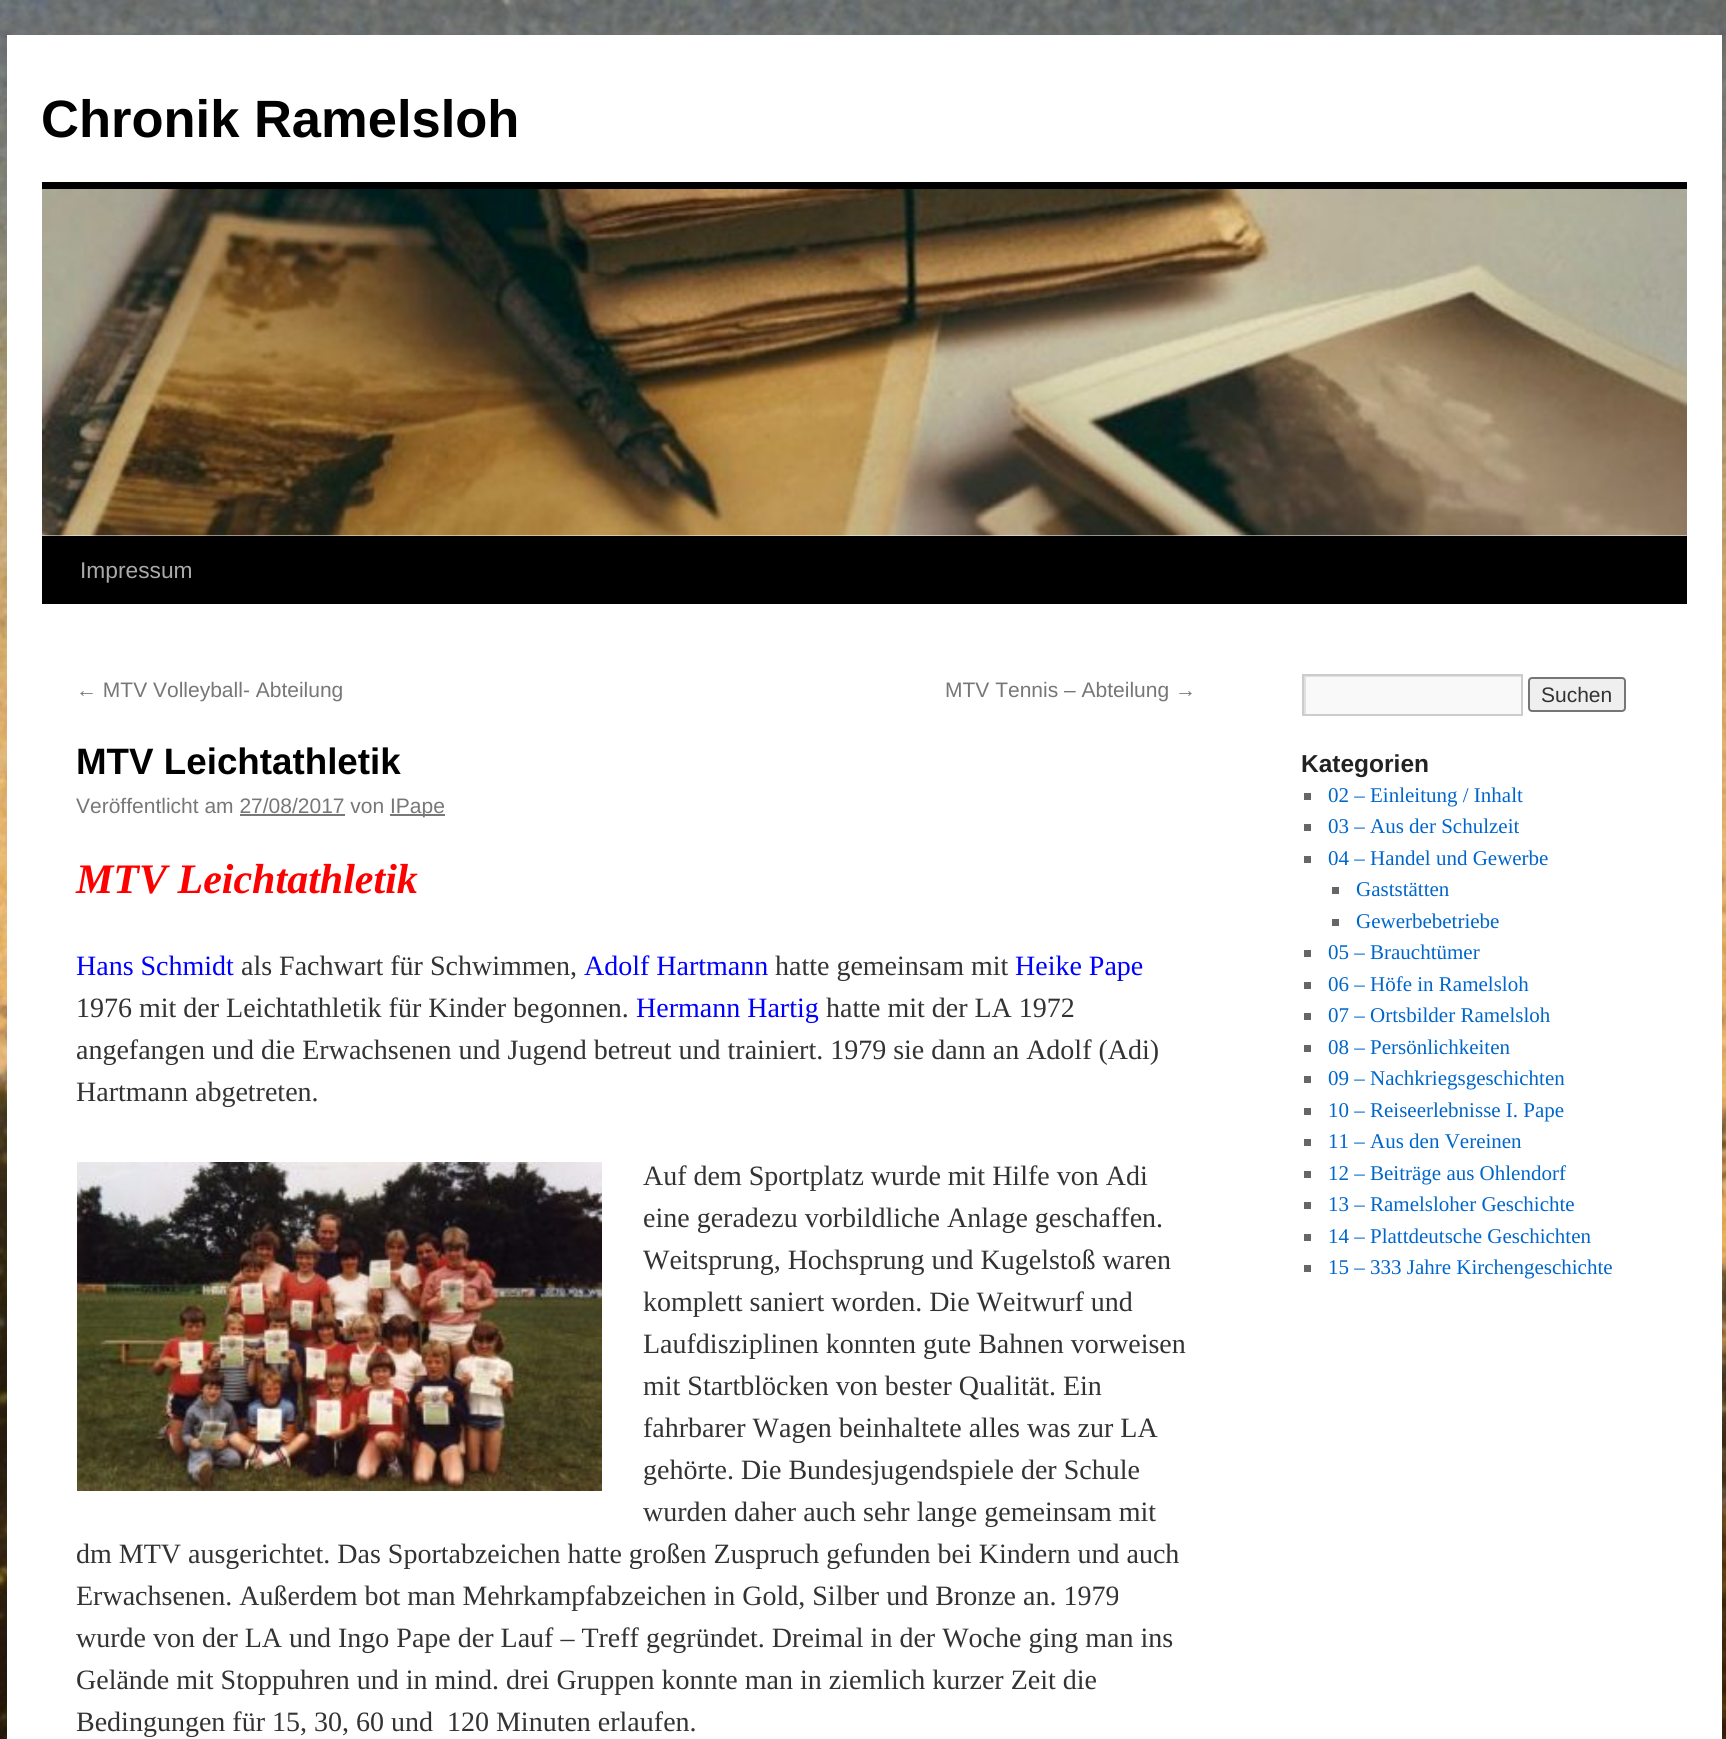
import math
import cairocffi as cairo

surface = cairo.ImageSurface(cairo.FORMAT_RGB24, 1726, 1739)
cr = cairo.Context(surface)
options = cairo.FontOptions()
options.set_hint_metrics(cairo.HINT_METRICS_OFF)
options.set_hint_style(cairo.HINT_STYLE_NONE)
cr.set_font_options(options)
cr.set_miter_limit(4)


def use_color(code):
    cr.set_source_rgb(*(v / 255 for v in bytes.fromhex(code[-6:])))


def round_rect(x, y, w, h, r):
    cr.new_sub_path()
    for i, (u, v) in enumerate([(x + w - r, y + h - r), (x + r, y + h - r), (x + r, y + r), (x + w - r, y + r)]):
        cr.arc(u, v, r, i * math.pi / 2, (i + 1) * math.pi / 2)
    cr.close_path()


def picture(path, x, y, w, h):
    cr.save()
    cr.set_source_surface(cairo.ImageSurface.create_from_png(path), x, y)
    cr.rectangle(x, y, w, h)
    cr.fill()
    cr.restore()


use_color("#ffffff")
cr.paint()
picture("img1.png", 0, 0, 1726, 1739)
use_color("#ffffff")
cr.rectangle(7, 35, 1715, 1704)
cr.fill()
cr.select_font_face("Liberation Sans", cairo.FONT_SLANT_NORMAL, cairo.FONT_WEIGHT_BOLD)
cr.set_font_size(52.5)
use_color("#000000")
cr.move_to(41, 137)
cr.show_text("Chronik Ramelsloh")
cr.rectangle(42, 182, 1645, 7)
cr.fill()
cr.rectangle(42, 536, 1645, 68)
cr.fill()
picture("img2.png", 42, 189, 1645, 347)
cr.select_font_face("Liberation Sans")
cr.set_font_size(22.75)
use_color("#aaaaaa")
cr.move_to(80, 578)
cr.show_text("Impressum")
cr.set_font_size(21)
use_color("#777777")
cr.move_to(76, 697)
cr.show_text("← MTV Volleyball- Abteilung")
cr.move_to(945, 697)
cr.show_text("MTV Tennis – Abteilung →")
cr.select_font_face("Liberation Sans", cairo.FONT_SLANT_NORMAL, cairo.FONT_WEIGHT_BOLD)
cr.set_font_size(36.75)
use_color("#000000")
cr.move_to(76, 774)
cr.show_text("MTV Leichtathletik")
cr.select_font_face("Liberation Sans")
cr.set_font_size(21)
use_color("#777777")
cr.move_to(76, 813)
cr.show_text("Veröffentlicht am 27/08/2017 von")
cr.rectangle(390, 814, 55, 2)
cr.fill()
cr.move_to(390, 813)
cr.show_text("IPape")
cr.rectangle(240, 814, 105, 2)
cr.fill()
cr.select_font_face("Liberation Serif", cairo.FONT_SLANT_ITALIC, cairo.FONT_WEIGHT_BOLD)
cr.set_font_size(42)
use_color("#ff0000")
cr.move_to(76, 893)
cr.show_text("MTV Leichtathletik")
cr.select_font_face("Liberation Serif")
cr.set_font_size(28)
use_color("#0000ff")
cr.move_to(76, 975)
cr.show_text("Hans Schmidt")
use_color("#333333")
cr.move_to(241, 975)
cr.show_text("als Fachwart für Schwimmen,")
use_color("#0000ff")
cr.move_to(584, 975)
cr.show_text("Adolf Hartmann")
use_color("#333333")
cr.move_to(775, 975)
cr.show_text("hatte gemeinsam mit")
use_color("#0000ff")
cr.move_to(1015, 975)
cr.show_text("Heike Pape")
use_color("#333333")
cr.move_to(76, 1017)
cr.show_text("1976 mit der Leichtathletik für Kinder begonnen.")
use_color("#0000ff")
cr.move_to(636, 1017)
cr.show_text("Hermann Hartig")
use_color("#333333")
cr.move_to(826, 1017)
cr.show_text("hatte mit der LA 1972")
cr.move_to(76, 1059)
cr.show_text("angefangen und die Erwachsenen und Jugend betreut und trainiert. 1979 sie dann an Adolf (Adi)")
cr.move_to(76, 1101)
cr.show_text("Hartmann abgetreten.")
picture("img3.png", 77, 1162, 525, 329)
cr.move_to(643, 1185)
cr.show_text("Auf dem Sportplatz wurde mit Hilfe von Adi")
cr.move_to(643, 1227)
cr.show_text("eine geradezu vorbildliche Anlage geschaffen.")
cr.move_to(643, 1269)
cr.show_text("Weitsprung, Hochsprung und Kugelstoß waren")
cr.move_to(643, 1311)
cr.show_text("komplett saniert worden. Die Weitwurf und")
cr.move_to(643, 1353)
cr.show_text("Laufdisziplinen konnten gute Bahnen vorweisen")
cr.move_to(643, 1395)
cr.show_text("mit Startblöcken von bester Qualität. Ein")
cr.move_to(643, 1437)
cr.show_text("fahrbarer Wagen beinhaltete alles was zur LA")
cr.move_to(643, 1479)
cr.show_text("gehörte. Die Bundesjugendspiele der Schule")
cr.move_to(643, 1521)
cr.show_text("wurden daher auch sehr lange gemeinsam mit")
cr.move_to(76, 1563)
cr.show_text("dm MTV ausgerichtet. Das Sportabzeichen hatte großen Zuspruch gefunden bei Kindern und auch")
cr.move_to(76, 1605)
cr.show_text("Erwachsenen. Außerdem bot man Mehrkampfabzeichen in Gold, Silber und Bronze an. 1979")
cr.move_to(76, 1647)
cr.show_text("wurde von der LA und Ingo Pape der Lauf – Treff gegründet. Dreimal in der Woche ging man ins")
cr.move_to(76, 1689)
cr.show_text("Gelände mit Stoppuhren und in mind. drei Gruppen konnte man in ziemlich kurzer Zeit die")
cr.move_to(76, 1731)
cr.show_text("Bedingungen für 15, 30, 60 und  120 Minuten erlaufen.")
use_color("#f9f9f9")
cr.rectangle(1306, 677, 215, 37)
cr.fill()
cr.save()
cr.rectangle(1304, 676, 217, 38)
cr.clip()
use_color("#e0e0e0")
cr.set_fill_rule(cairo.FILL_RULE_EVEN_ODD)
cr.new_path()
cr.move_to(1130, 502)
cr.line_to(1694, 502)
cr.line_to(1694, 887)
cr.line_to(1130, 887)
cr.close_path()
cr.move_to(1306, 677)
cr.line_to(1522, 677)
cr.line_to(1522, 716)
cr.line_to(1306, 716)
cr.close_path()
cr.fill()
cr.restore()
cr.rectangle(1303, 675, 219, 40)
use_color("#cccccc")
cr.stroke()
use_color("#efefef")
round_rect(1529, 678, 96, 33, 3)
cr.fill_preserve()
use_color("#767676")
cr.stroke()
cr.select_font_face("Liberation Sans")
cr.set_font_size(21)
use_color("#333333")
cr.move_to(1541, 702)
cr.show_text("Suchen")
cr.select_font_face("Liberation Sans", cairo.FONT_SLANT_NORMAL, cairo.FONT_WEIGHT_BOLD)
cr.set_font_size(24.5)
use_color("#222222")
cr.move_to(1301, 772)
cr.show_text("Kategorien")
use_color("#666666")
cr.rectangle(1304, 793, 7, 7)
cr.fill()
cr.select_font_face("Liberation Serif")
cr.set_font_size(21)
use_color("#0066cc")
cr.move_to(1328, 802)
cr.show_text("02 – Einleitung / Inhalt")
use_color("#666666")
cr.rectangle(1304, 824, 7, 7)
cr.fill()
use_color("#0066cc")
cr.move_to(1328, 833)
cr.show_text("03 – Aus der Schulzeit")
use_color("#666666")
cr.rectangle(1304, 856, 7, 7)
cr.fill()
use_color("#0066cc")
cr.move_to(1328, 865)
cr.show_text("04 – Handel und Gewerbe")
use_color("#666666")
cr.rectangle(1332, 887, 7, 7)
cr.fill()
use_color("#0066cc")
cr.move_to(1356, 896)
cr.show_text("Gaststätten")
use_color("#666666")
cr.rectangle(1332, 919, 7, 7)
cr.fill()
use_color("#0066cc")
cr.move_to(1356, 928)
cr.show_text("Gewerbebetriebe")
use_color("#666666")
cr.rectangle(1304, 950, 7, 7)
cr.fill()
use_color("#0066cc")
cr.move_to(1328, 959)
cr.show_text("05 – Brauchtümer")
use_color("#666666")
cr.rectangle(1304, 982, 7, 7)
cr.fill()
use_color("#0066cc")
cr.move_to(1328, 991)
cr.show_text("06 – Höfe in Ramelsloh")
use_color("#666666")
cr.rectangle(1304, 1013, 7, 7)
cr.fill()
use_color("#0066cc")
cr.move_to(1328, 1022)
cr.show_text("07 – Ortsbilder Ramelsloh")
use_color("#666666")
cr.rectangle(1304, 1045, 7, 7)
cr.fill()
use_color("#0066cc")
cr.move_to(1328, 1054)
cr.show_text("08 – Persönlichkeiten")
use_color("#666666")
cr.rectangle(1304, 1076, 7, 7)
cr.fill()
use_color("#0066cc")
cr.move_to(1328, 1085)
cr.show_text("09 – Nachkriegsgeschichten")
use_color("#666666")
cr.rectangle(1304, 1108, 7, 7)
cr.fill()
use_color("#0066cc")
cr.move_to(1328, 1117)
cr.show_text("10 – Reiseerlebnisse I. Pape")
use_color("#666666")
cr.rectangle(1304, 1139, 7, 7)
cr.fill()
use_color("#0066cc")
cr.move_to(1328, 1148)
cr.show_text("11 – Aus den Vereinen")
use_color("#666666")
cr.rectangle(1304, 1171, 7, 7)
cr.fill()
use_color("#0066cc")
cr.move_to(1328, 1180)
cr.show_text("12 – Beiträge aus Ohlendorf")
use_color("#666666")
cr.rectangle(1304, 1202, 7, 7)
cr.fill()
use_color("#0066cc")
cr.move_to(1328, 1211)
cr.show_text("13 – Ramelsloher Geschichte")
use_color("#666666")
cr.rectangle(1304, 1234, 7, 7)
cr.fill()
use_color("#0066cc")
cr.move_to(1328, 1243)
cr.show_text("14 – Plattdeutsche Geschichten")
use_color("#666666")
cr.rectangle(1304, 1265, 7, 7)
cr.fill()
use_color("#0066cc")
cr.move_to(1328, 1274)
cr.show_text("15 – 333 Jahre Kirchengeschichte")
surface.write_to_png("result.png")
